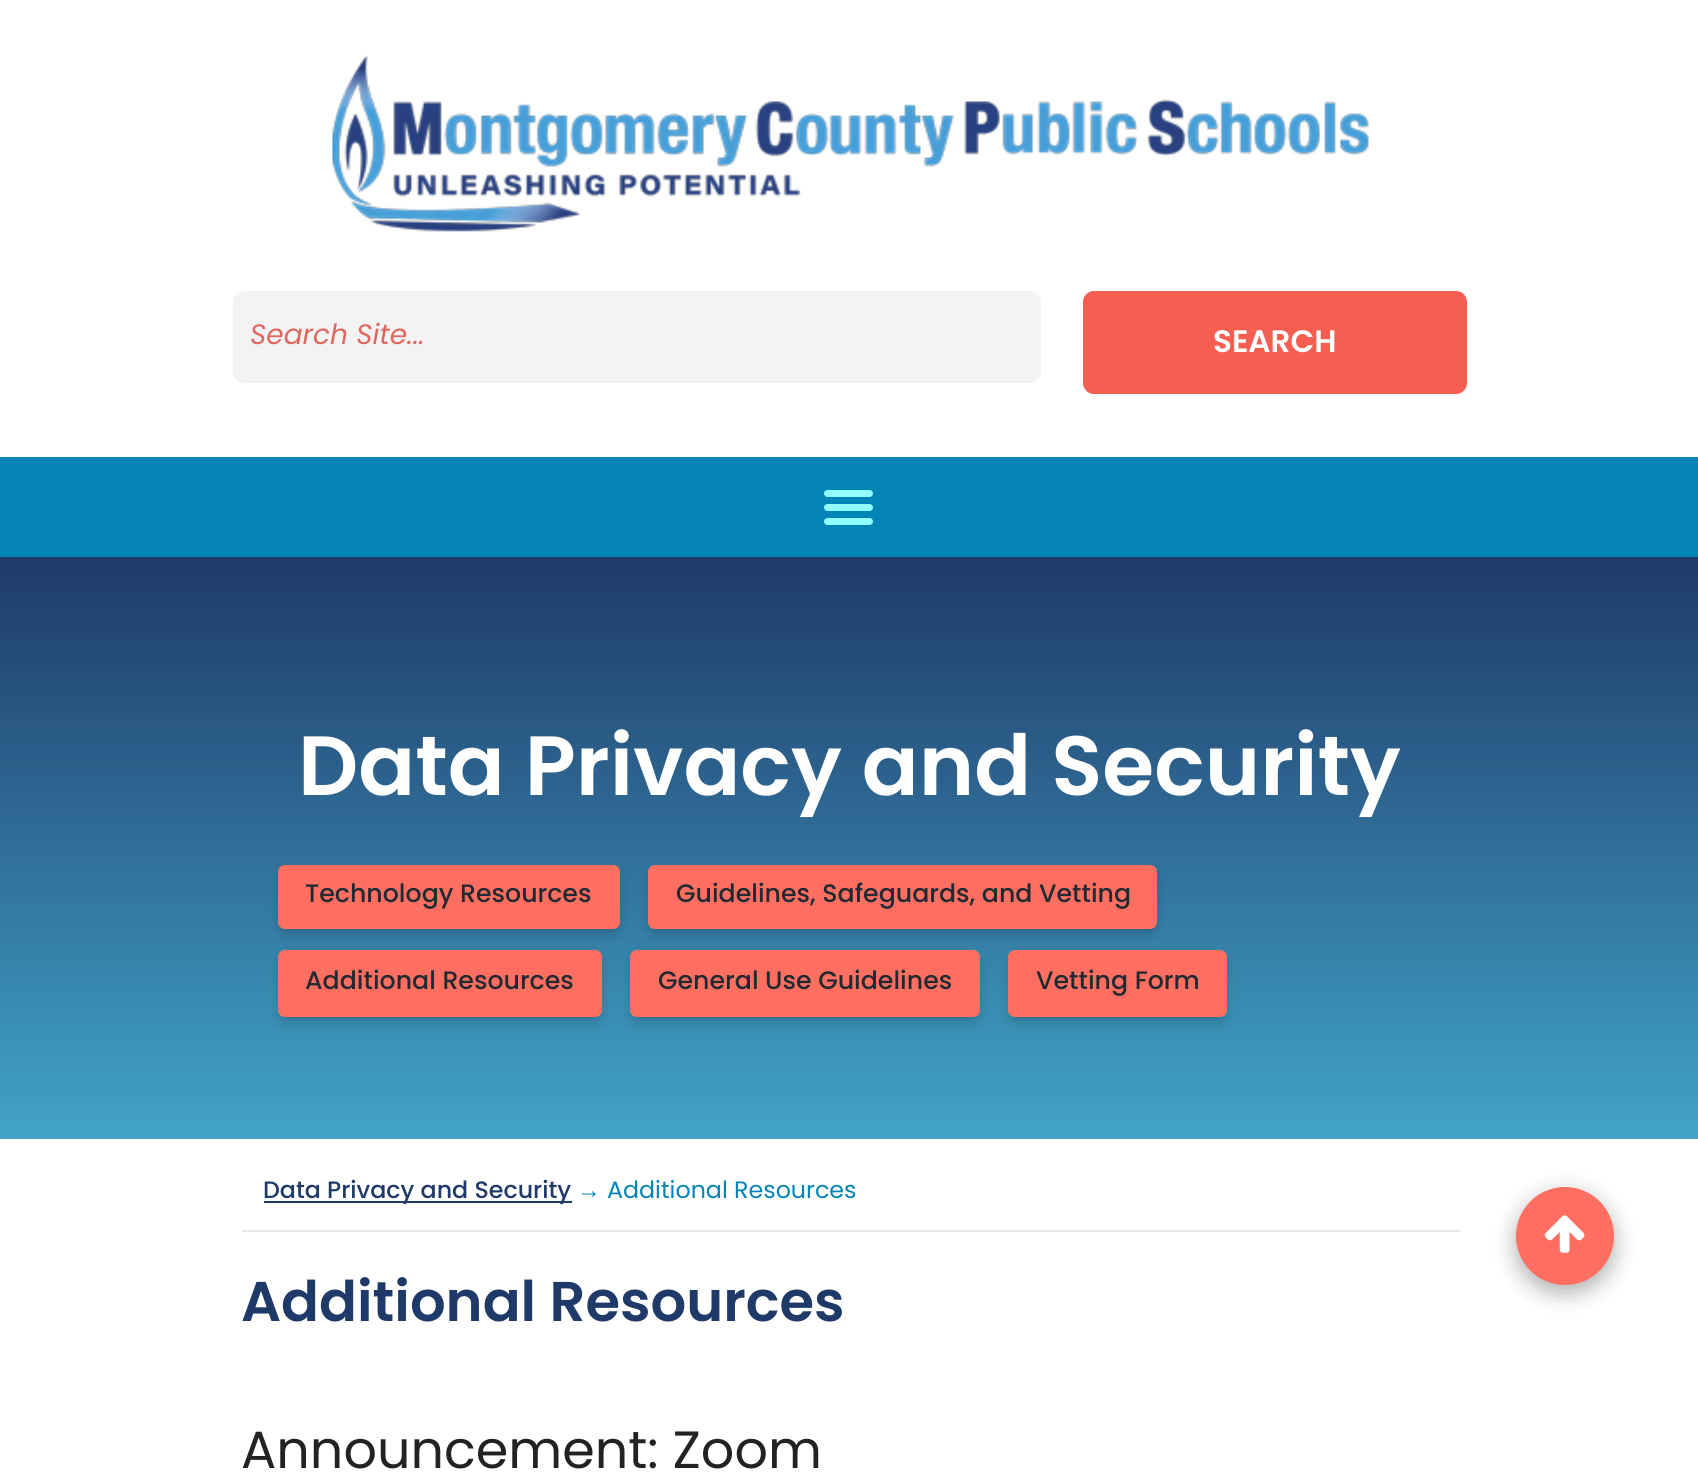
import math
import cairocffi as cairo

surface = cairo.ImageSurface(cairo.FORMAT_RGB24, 1698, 1480)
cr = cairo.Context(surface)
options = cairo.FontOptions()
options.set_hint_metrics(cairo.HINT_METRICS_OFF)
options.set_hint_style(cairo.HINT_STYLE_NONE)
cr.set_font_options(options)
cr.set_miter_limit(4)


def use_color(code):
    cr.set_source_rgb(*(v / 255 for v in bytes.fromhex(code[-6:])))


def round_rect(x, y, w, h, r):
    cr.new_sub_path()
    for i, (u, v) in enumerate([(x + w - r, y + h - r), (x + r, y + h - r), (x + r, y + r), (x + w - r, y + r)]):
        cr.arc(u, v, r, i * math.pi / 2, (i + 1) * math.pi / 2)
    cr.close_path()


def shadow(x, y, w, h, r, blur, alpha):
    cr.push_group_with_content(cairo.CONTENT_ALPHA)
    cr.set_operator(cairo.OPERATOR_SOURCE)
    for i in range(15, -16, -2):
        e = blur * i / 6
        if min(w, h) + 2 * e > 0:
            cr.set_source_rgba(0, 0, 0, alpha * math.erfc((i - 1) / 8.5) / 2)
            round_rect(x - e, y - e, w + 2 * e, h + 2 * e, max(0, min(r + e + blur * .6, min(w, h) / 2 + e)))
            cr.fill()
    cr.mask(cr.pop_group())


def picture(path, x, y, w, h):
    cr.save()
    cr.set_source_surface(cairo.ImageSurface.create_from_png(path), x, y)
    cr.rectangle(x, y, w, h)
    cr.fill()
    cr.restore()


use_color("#ffffff")
cr.paint()
picture("img1.png", 330, 55, 1039, 177)
use_color("#f3f3f3")
round_rect(233, 291, 808, 92, 11)
cr.fill()
cr.select_font_face("Poppins", cairo.FONT_SLANT_ITALIC)
cr.set_font_size(28)
use_color("#de6860")
cr.move_to(250, 344)
cr.show_text("Search Site...")
use_color("#f55e50")
round_rect(1083, 291, 384, 103, 11)
cr.fill()
cr.select_font_face("Poppins SemiBold")
cr.set_font_size(31)
use_color("#ffffff")
cr.move_to(1213, 352)
cr.show_text("SEARCH")
use_color("#0285b6")
cr.rectangle(0, 457, 1698, 100)
cr.fill()
use_color("#91ffff")
round_rect(824, 504, 49, 7, 3.5)
cr.fill()
round_rect(824, 490, 49, 7, 3.5)
cr.fill()
round_rect(824, 518, 49, 7, 3.5)
cr.fill()
gradient = cairo.LinearGradient(850, 556, 850, 1139)
gradient.add_color_stop_rgba(0, 0.122, 0.227, 0.412, 1)
gradient.add_color_stop_rgba(1, 0.255, 0.643, 0.784, 1)
cr.set_source(gradient)
cr.rectangle(0, 557, 1698, 582)
cr.fill()
cr.set_font_size(84)
use_color("#ffffff")
cr.move_to(298, 795)
cr.show_text("Data Privacy and Security")
use_color("#000000")
shadow(285, 879, 328, 50, 0, 8, 0.35)
use_color("#ff6f61")
round_rect(278, 865, 342, 64, 7)
cr.fill()
cr.select_font_face("Poppins Medium")
cr.set_font_size(25.25)
use_color("#212931")
cr.move_to(305, 902)
cr.show_text("Technology Resources")
use_color("#000000")
shadow(655, 879, 495, 50, 0, 8, 0.35)
use_color("#ff6f61")
round_rect(648, 865, 509, 64, 7)
cr.fill()
use_color("#212931")
cr.move_to(676, 902)
cr.show_text("Guidelines, Safeguards, and Vetting")
use_color("#000000")
shadow(285, 964, 310, 53, 0, 8, 0.35)
use_color("#ff6f61")
round_rect(278, 950, 324, 67, 7)
cr.fill()
use_color("#212931")
cr.move_to(305, 989)
cr.show_text("Additional Resources")
use_color("#000000")
shadow(637, 964, 336, 53, 0, 8, 0.35)
use_color("#ff6f61")
round_rect(630, 950, 350, 67, 7)
cr.fill()
use_color("#212931")
cr.move_to(658, 989)
cr.show_text("General Use Guidelines")
use_color("#000000")
shadow(1015, 964, 205, 53, 0, 8, 0.35)
use_color("#ff6f61")
round_rect(1008, 950, 219, 67, 7)
cr.fill()
use_color("#212931")
cr.move_to(1036, 989)
cr.show_text("Vetting Form")
use_color("#e7e7e7")
cr.rectangle(242, 1230, 1218, 2)
cr.fill()
use_color("#1f3a69")
cr.rectangle(264, 1201, 308, 2)
cr.fill()
cr.set_font_size(23.75)
cr.move_to(263, 1198)
cr.show_text("Data Privacy and Security")
cr.select_font_face("Liberation Sans")
use_color("#0285b6")
cr.move_to(577, 1198)
cr.show_text("→")
cr.select_font_face("Poppins")
cr.move_to(607, 1198)
cr.show_text("Additional Resources")
cr.select_font_face("Poppins SemiBold")
cr.set_font_size(56)
use_color("#1f3a69")
cr.move_to(241, 1321)
cr.show_text("Additional Resources")
cr.select_font_face("Poppins")
cr.set_font_size(52.4)
use_color("#222222")
cr.move_to(241, 1468)
cr.show_text("Announcement: Zoom")
use_color("#000000")
shadow(1516, 1194, 98, 98, 49, 13, 0.15)
shadow(1516, 1195, 98, 98, 49, 9.5, 0.18)
use_color("#ff6f61")
cr.arc(1565, 1236, 49, 0, 2 * math.pi)
cr.fill()
picture("img2.png", 1544, 1215, 41, 38)
surface.write_to_png("result.png")
